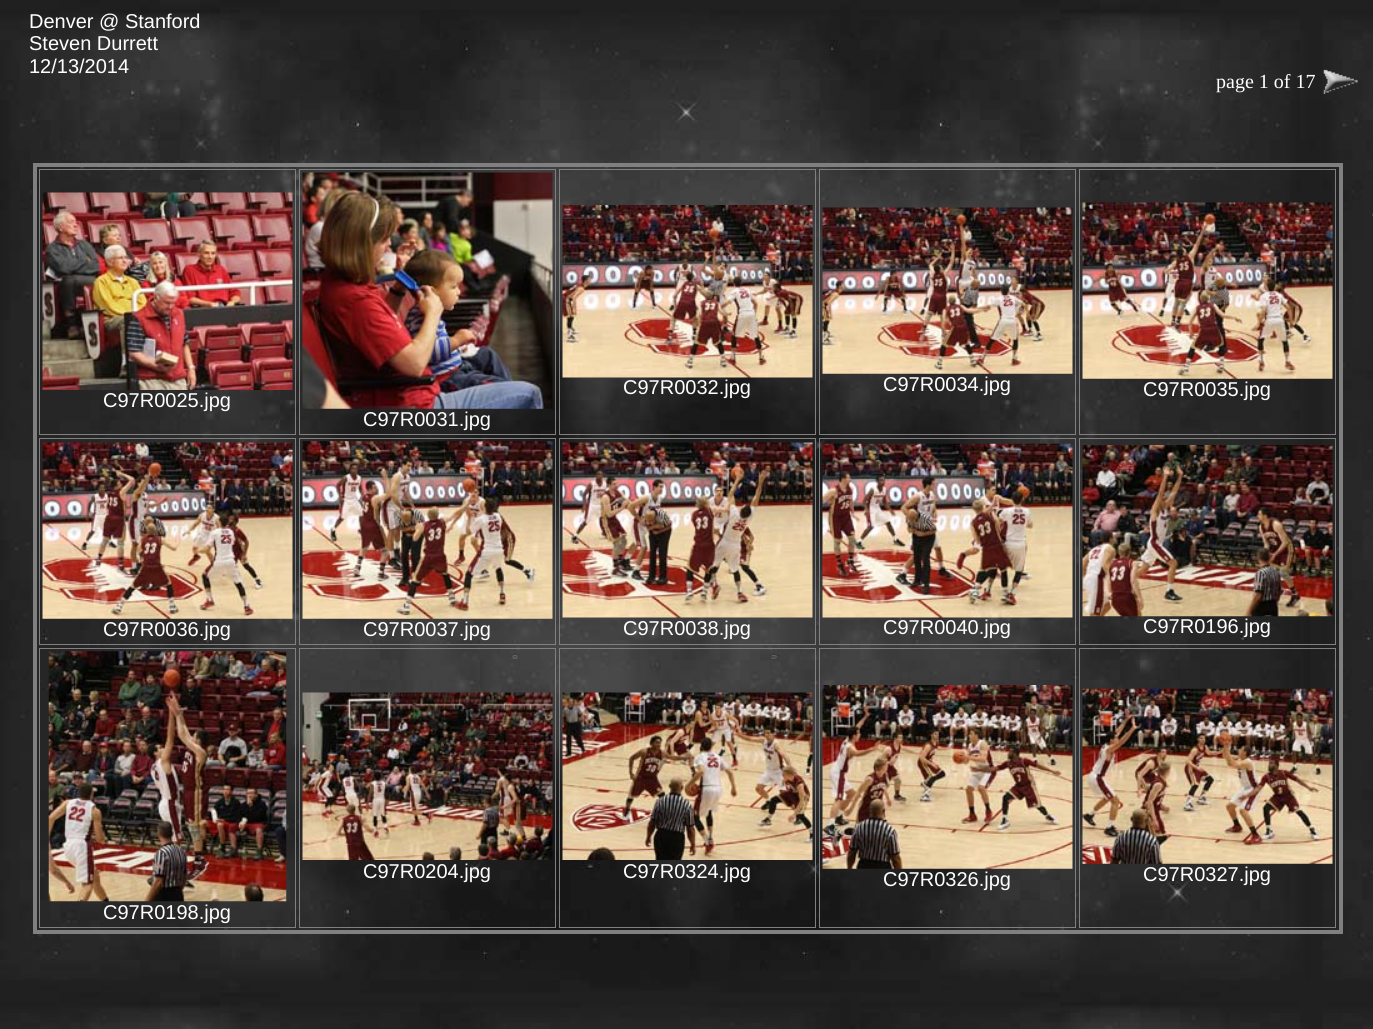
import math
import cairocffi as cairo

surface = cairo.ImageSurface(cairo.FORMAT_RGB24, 1373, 1029)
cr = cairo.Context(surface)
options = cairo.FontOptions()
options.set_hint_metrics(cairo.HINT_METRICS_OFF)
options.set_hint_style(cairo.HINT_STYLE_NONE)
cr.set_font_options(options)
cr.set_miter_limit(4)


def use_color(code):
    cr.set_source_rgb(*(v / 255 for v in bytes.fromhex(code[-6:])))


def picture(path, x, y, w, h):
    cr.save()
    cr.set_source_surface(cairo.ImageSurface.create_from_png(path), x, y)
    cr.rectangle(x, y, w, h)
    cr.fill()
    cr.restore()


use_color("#ffffff")
cr.paint()
picture("img1.png", 0, 0, 1373, 1029)
cr.select_font_face("Liberation Sans")
cr.set_font_size(20)
use_color("#ffffff")
cr.move_to(29, 28)
cr.show_text("Denver @ Stanford")
cr.move_to(29, 50)
cr.show_text("Steven Durrett")
cr.move_to(29, 73)
cr.show_text("12/13/2014")
cr.select_font_face("Liberation Serif")
cr.move_to(1216, 88)
cr.show_text("page 1 of 17")
picture("img2.png", 1323, 69, 35, 25)
cr.rectangle(35, 165, 1306, 767)
use_color("#808080")
cr.set_line_width(4)
cr.stroke()
cr.rectangle(39.5, 169.5, 256, 265)
cr.set_line_width(1)
cr.stroke()
picture("img3.png", 42, 192, 251, 198)
cr.select_font_face("Liberation Sans")
use_color("#ffffff")
cr.move_to(103, 407)
cr.show_text("C97R0025.jpg")
cr.rectangle(559.5, 169.5, 256, 265)
use_color("#808080")
cr.stroke()
picture("img4.png", 562, 205, 251, 173)
use_color("#ffffff")
cr.move_to(623, 394)
cr.show_text("C97R0032.jpg")
cr.rectangle(819.5, 169.5, 256, 265)
use_color("#808080")
cr.stroke()
picture("img5.png", 822, 207, 251, 167)
use_color("#ffffff")
cr.move_to(883, 391)
cr.show_text("C97R0034.jpg")
cr.rectangle(1079.5, 169.5, 256, 265)
use_color("#808080")
cr.stroke()
picture("img6.png", 1082, 202, 251, 177)
use_color("#ffffff")
cr.move_to(1143, 396)
cr.show_text("C97R0035.jpg")
cr.rectangle(299.5, 169.5, 256, 265)
use_color("#808080")
cr.stroke()
picture("img7.png", 302, 172, 251, 237)
use_color("#ffffff")
cr.move_to(363, 426)
cr.show_text("C97R0031.jpg")
cr.rectangle(39.5, 438.5, 256, 206)
use_color("#808080")
cr.stroke()
picture("img8.png", 42, 442, 251, 177)
use_color("#ffffff")
cr.move_to(103, 636)
cr.show_text("C97R0036.jpg")
cr.rectangle(299.5, 438.5, 256, 206)
use_color("#808080")
cr.stroke()
picture("img9.png", 302, 441, 251, 178)
use_color("#ffffff")
cr.move_to(363, 636)
cr.show_text("C97R0037.jpg")
cr.rectangle(559.5, 438.5, 256, 206)
use_color("#808080")
cr.stroke()
picture("img10.png", 562, 442, 251, 176)
use_color("#ffffff")
cr.move_to(623, 635)
cr.show_text("C97R0038.jpg")
cr.rectangle(819.5, 438.5, 256, 206)
use_color("#808080")
cr.stroke()
picture("img11.png", 822, 443, 251, 175)
use_color("#ffffff")
cr.move_to(883, 634)
cr.show_text("C97R0040.jpg")
cr.rectangle(1079.5, 438.5, 256, 206)
use_color("#808080")
cr.stroke()
picture("img12.png", 1082, 445, 251, 172)
use_color("#ffffff")
cr.move_to(1143, 633)
cr.show_text("C97R0196.jpg")
cr.rectangle(299.5, 648.5, 256, 279)
use_color("#808080")
cr.stroke()
picture("img13.png", 302, 692, 251, 168)
use_color("#ffffff")
cr.move_to(363, 878)
cr.show_text("C97R0204.jpg")
cr.rectangle(559.5, 648.5, 256, 279)
use_color("#808080")
cr.stroke()
picture("img14.png", 562, 692, 251, 168)
use_color("#ffffff")
cr.move_to(623, 878)
cr.show_text("C97R0324.jpg")
cr.rectangle(819.5, 648.5, 256, 279)
use_color("#808080")
cr.stroke()
picture("img15.png", 822, 685, 251, 184)
use_color("#ffffff")
cr.move_to(883, 886)
cr.show_text("C97R0326.jpg")
cr.rectangle(1079.5, 648.5, 256, 279)
use_color("#808080")
cr.stroke()
picture("img16.png", 1082, 688, 251, 176)
use_color("#ffffff")
cr.move_to(1143, 881)
cr.show_text("C97R0327.jpg")
cr.rectangle(39.5, 648.5, 256, 279)
use_color("#808080")
cr.stroke()
picture("img17.png", 48, 651, 239, 251)
use_color("#ffffff")
cr.move_to(103, 919)
cr.show_text("C97R0198.jpg")
surface.write_to_png("result.png")
